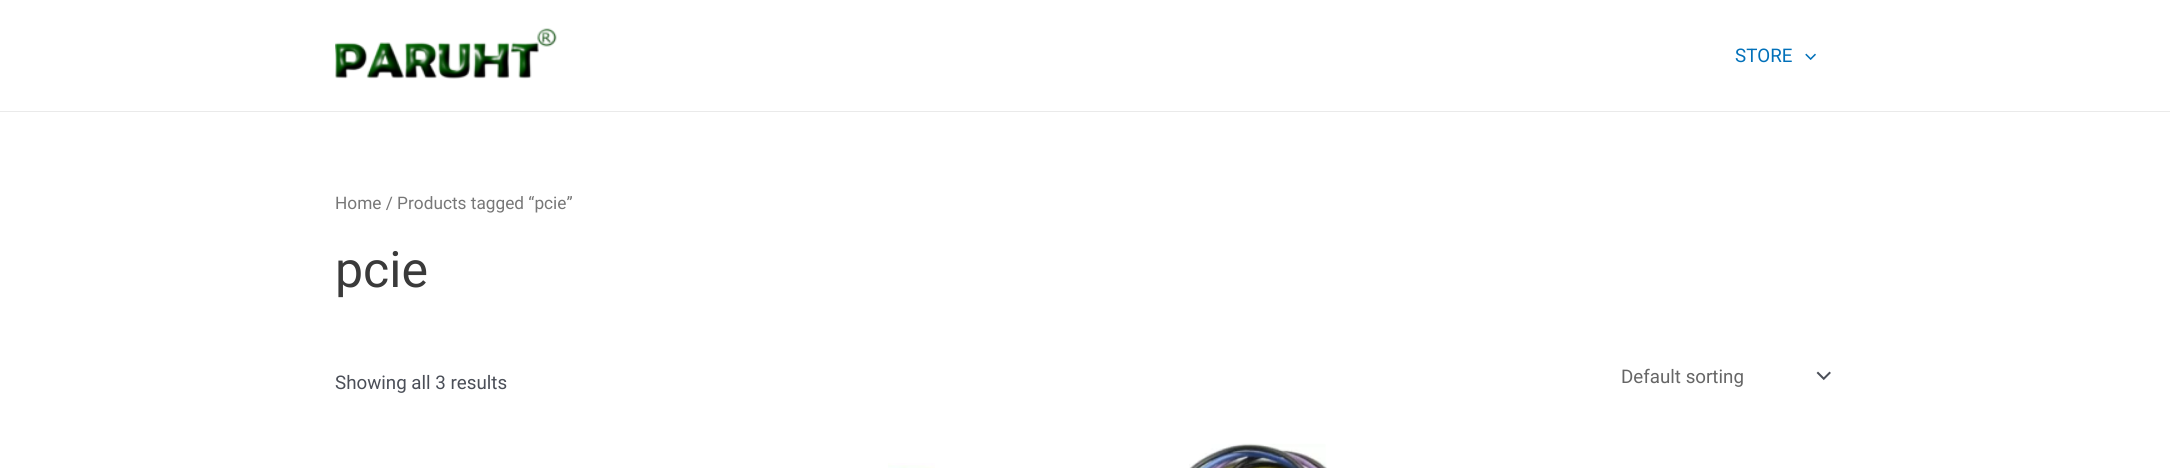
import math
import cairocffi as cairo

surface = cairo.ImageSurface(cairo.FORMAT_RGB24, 2170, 468)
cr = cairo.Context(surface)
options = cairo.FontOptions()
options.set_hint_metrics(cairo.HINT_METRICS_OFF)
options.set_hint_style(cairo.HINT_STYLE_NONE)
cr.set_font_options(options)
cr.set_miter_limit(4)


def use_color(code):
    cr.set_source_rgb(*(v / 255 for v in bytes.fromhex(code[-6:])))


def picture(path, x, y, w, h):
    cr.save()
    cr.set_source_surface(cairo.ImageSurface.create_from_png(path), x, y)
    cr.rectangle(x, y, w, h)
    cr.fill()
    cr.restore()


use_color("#ffffff")
cr.paint()
use_color("#eaeaea")
cr.rectangle(0, 111, 2170, 1)
cr.fill()
picture("img1.png", 335, 28, 222, 51)
cr.select_font_face("Roboto")
cr.set_font_size(18.75)
use_color("#0170b9")
cr.move_to(1735, 62)
cr.show_text("STORE")
picture("img2.png", 1805, 53, 11, 7)
cr.set_font_size(17.25)
use_color("#777777")
cr.move_to(335, 209)
cr.show_text("Home / Products tagged “pcie”")
cr.set_font_size(50)
use_color("#3a3a3a")
cr.move_to(335, 287)
cr.show_text("pcie")
cr.set_font_size(18.75)
use_color("#4b4f58")
cr.move_to(335, 389)
cr.show_text("Showing all 3 results")
picture("img3.png", 1816, 371, 15, 10)
use_color("#666666")
cr.move_to(1621, 383)
cr.show_text("Default sorting")
picture("img4.png", 888, 463, 47, 5)
picture("img5.png", 1189, 443, 138, 25)
surface.write_to_png("result.png")
